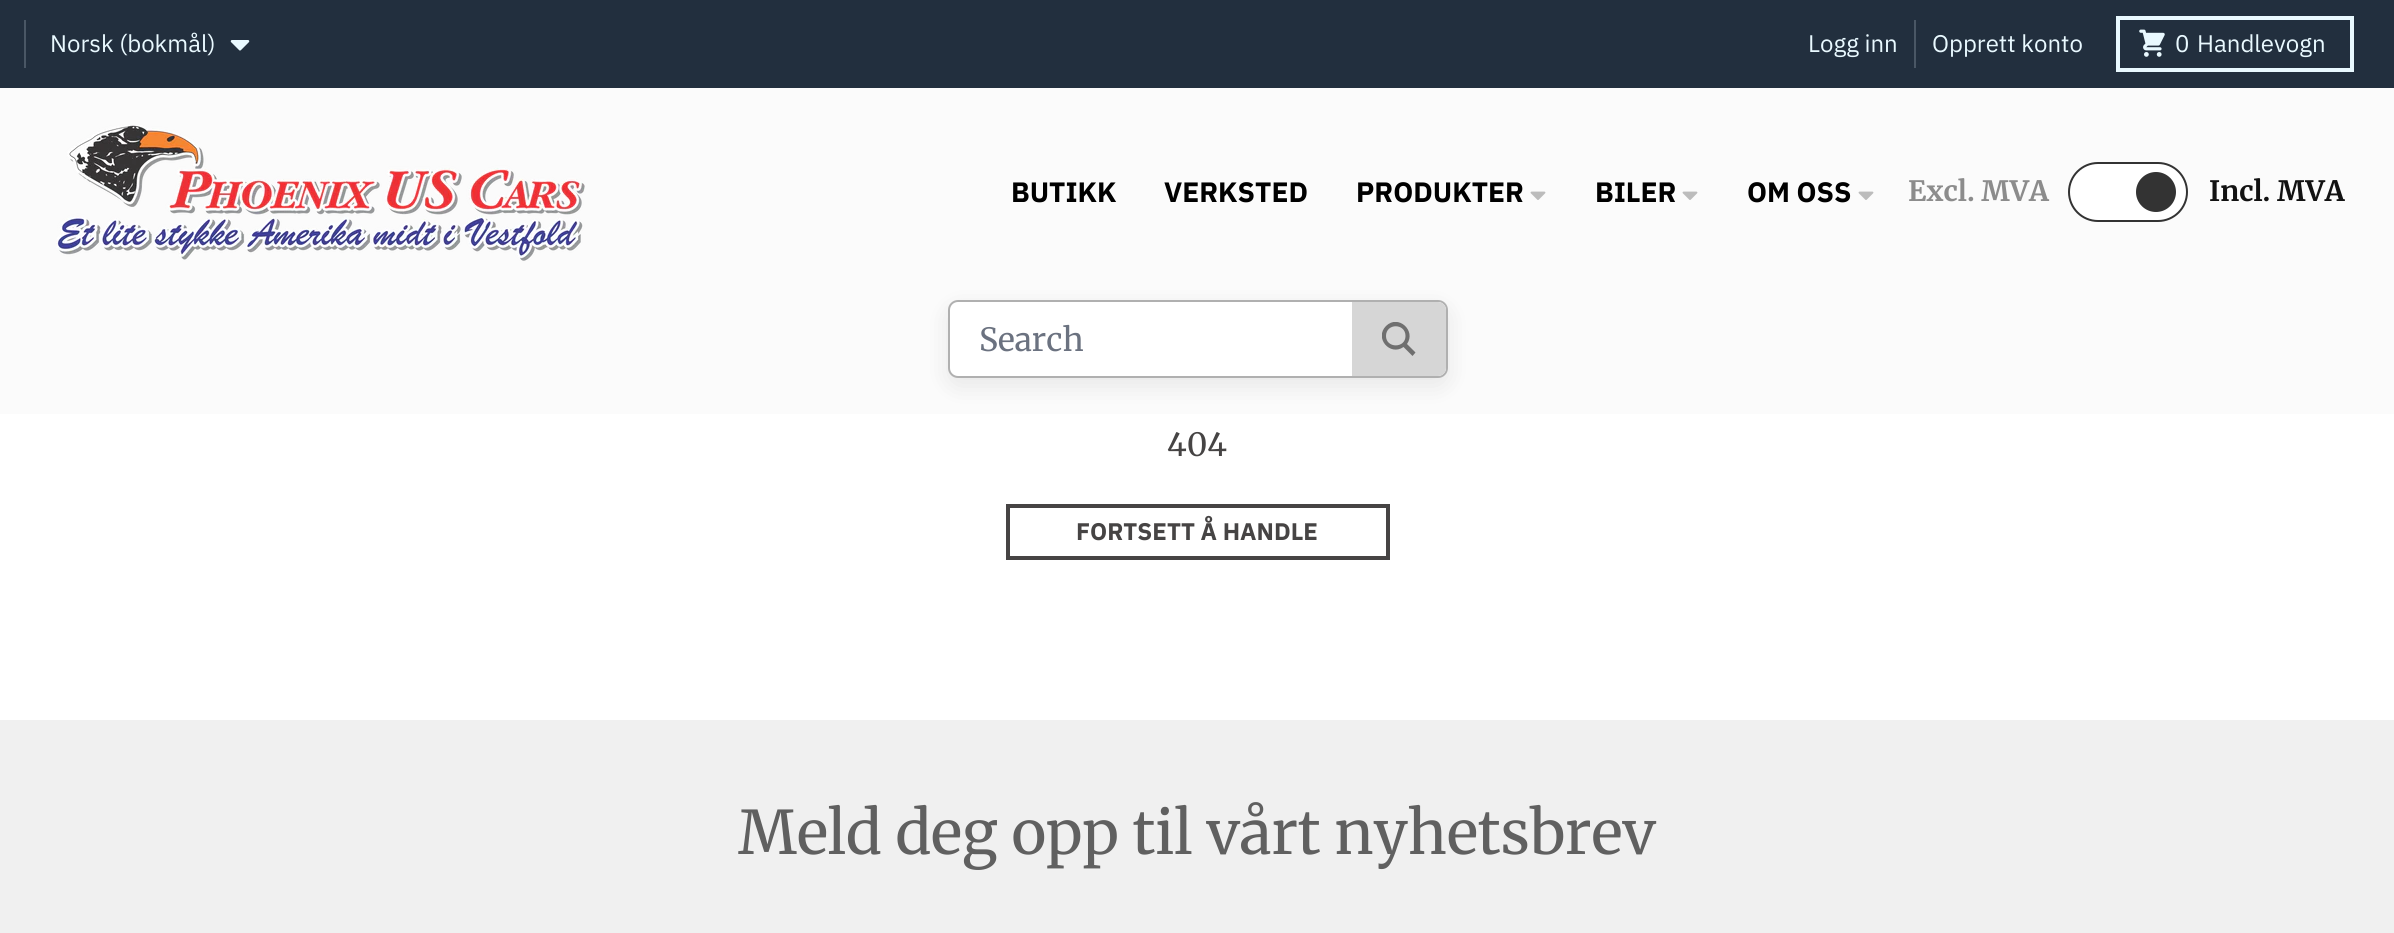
import math
import cairocffi as cairo

surface = cairo.ImageSurface(cairo.FORMAT_RGB24, 2394, 933)
cr = cairo.Context(surface)
options = cairo.FontOptions()
options.set_hint_metrics(cairo.HINT_METRICS_OFF)
options.set_hint_style(cairo.HINT_STYLE_NONE)
cr.set_font_options(options)
cr.set_miter_limit(4)


def use_color(code):
    cr.set_source_rgb(*(v / 255 for v in bytes.fromhex(code[-6:])))


def round_rect(x, y, w, h, r):
    cr.new_sub_path()
    for i, (u, v) in enumerate([(x + w - r, y + h - r), (x + r, y + h - r), (x + r, y + r), (x + w - r, y + r)]):
        cr.arc(u, v, r, i * math.pi / 2, (i + 1) * math.pi / 2)
    cr.close_path()


def shadow(x, y, w, h, r, blur, alpha):
    cr.push_group_with_content(cairo.CONTENT_ALPHA)
    cr.set_operator(cairo.OPERATOR_SOURCE)
    for i in range(15, -16, -2):
        e = blur * i / 6
        if min(w, h) + 2 * e > 0:
            cr.set_source_rgba(0, 0, 0, alpha * math.erfc((i - 1) / 8.5) / 2)
            round_rect(x - e, y - e, w + 2 * e, h + 2 * e, max(0, min(r + e + blur * .6, min(w, h) / 2 + e)))
            cr.fill()
    cr.mask(cr.pop_group())


def picture(path, x, y, w, h):
    cr.save()
    cr.set_source_surface(cairo.ImageSurface.create_from_png(path), x, y)
    cr.rectangle(x, y, w, h)
    cr.fill()
    cr.restore()


use_color("#222f3e")
cr.paint()
use_color("#4a5765")
cr.rectangle(24, 20, 2, 48)
cr.fill()
cr.select_font_face("IBM Plex Sans")
cr.set_font_size(24)
use_color("#e9f9ff")
cr.move_to(50, 52)
cr.show_text("Norsk (bokmål)")
picture("img1.png", 230, 40, 20, 11)
cr.move_to(1808, 52)
cr.show_text("Logg inn")
use_color("#4a5765")
cr.rectangle(1914, 20, 2, 48)
cr.fill()
use_color("#e9f9ff")
cr.move_to(1932, 52)
cr.show_text("Opprett konto")
cr.rectangle(2118, 18, 234, 52)
cr.set_line_width(4)
cr.stroke()
picture("img2.png", 2139, 29, 26, 28)
cr.move_to(2175, 52)
cr.show_text("0")
cr.move_to(2197, 52)
cr.show_text("Handlevogn")
use_color("#fbfbfb")
cr.rectangle(0, 88, 2394, 326)
cr.fill()
picture("img3.png", 56, 125, 529, 136)
cr.select_font_face("IBM Plex Sans", cairo.FONT_SLANT_NORMAL, cairo.FONT_WEIGHT_BOLD)
cr.set_font_size(28)
use_color("#000000")
cr.move_to(1011, 202)
cr.show_text("BUTIKK")
cr.move_to(1164, 202)
cr.show_text("VERKSTED")
cr.move_to(1356, 202)
cr.show_text("PRODUKTER")
picture("img4.png", 1530, 191, 16, 9)
cr.move_to(1595, 202)
cr.show_text("BILER")
picture("img4.png", 1682, 191, 16, 9)
cr.move_to(1747, 202)
cr.show_text("OM OSS")
picture("img4.png", 1858, 191, 16, 9)
cr.select_font_face("Merriweather", cairo.FONT_SLANT_NORMAL, cairo.FONT_WEIGHT_BOLD)
use_color("#8c8c8c")
cr.move_to(1908, 201)
cr.show_text("Excl. MVA")
use_color("#ffffff")
round_rect(2069, 163, 118, 58, 29)
cr.fill_preserve()
use_color("#333333")
cr.set_line_width(2)
cr.stroke()
cr.arc(2156, 192, 20, 0, 2 * math.pi)
cr.fill()
use_color("#121212")
cr.move_to(2209, 201)
cr.show_text("Incl. MVA")
use_color("#ffffff")
cr.rectangle(0, 414, 2394, 306)
cr.fill()
use_color("#000000")
shadow(948, 308, 500, 78, 10, 12, 0.08)
use_color("#ffffff")
round_rect(949, 301, 498, 76, 9)
cr.fill_preserve()
use_color("#b0b0b0")
cr.stroke()
cr.select_font_face("Merriweather")
cr.set_font_size(32)
use_color("#6b7280")
cr.move_to(979, 351)
cr.show_text("Search")
use_color("#d6d6d6")
cr.new_path()
cr.move_to(1352, 302)
cr.line_to(1438, 302)
cr.curve_to(1442.5, 302, 1446, 305.5, 1446, 310)
cr.line_to(1446, 368)
cr.curve_to(1446, 372.5, 1442.5, 376, 1438, 376)
cr.line_to(1352, 376)
cr.close_path()
cr.fill()
cr.save()
cr.rectangle(1382, 322, 34, 34)
cr.clip()
use_color("#6f6f6f")
cr.new_path()
cr.move_to(1415.5, 352.5)
cr.line_to(1407, 344)
cr.curve_to(1416.5, 330.5, 1398, 314, 1386, 326)
cr.curve_to(1374, 338, 1390, 356.5, 1403.5, 347)
cr.line_to(1412.5, 356)
cr.close_path()
cr.move_to(1386, 336)
cr.curve_to(1386, 323, 1405.5, 323, 1405.5, 336)
cr.curve_to(1405.5, 348.5, 1386, 348.5, 1386, 336)
cr.close_path()
cr.fill()
cr.restore()
use_color("#464444")
cr.move_to(1167, 456)
cr.show_text("404")
cr.rectangle(1008, 506, 380, 52)
cr.set_line_width(4)
cr.stroke()
cr.select_font_face("IBM Plex Sans", cairo.FONT_SLANT_NORMAL, cairo.FONT_WEIGHT_BOLD)
cr.set_font_size(24)
cr.move_to(1076, 540)
cr.show_text("FORTSETT Å HANDLE")
use_color("#f0f0f0")
cr.rectangle(0, 720, 2394, 213)
cr.fill()
cr.select_font_face("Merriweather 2")
cr.set_font_size(60)
use_color("#606060")
cr.move_to(738, 854)
cr.show_text("Meld deg opp til vårt nyhetsbrev")
surface.write_to_png("result.png")
